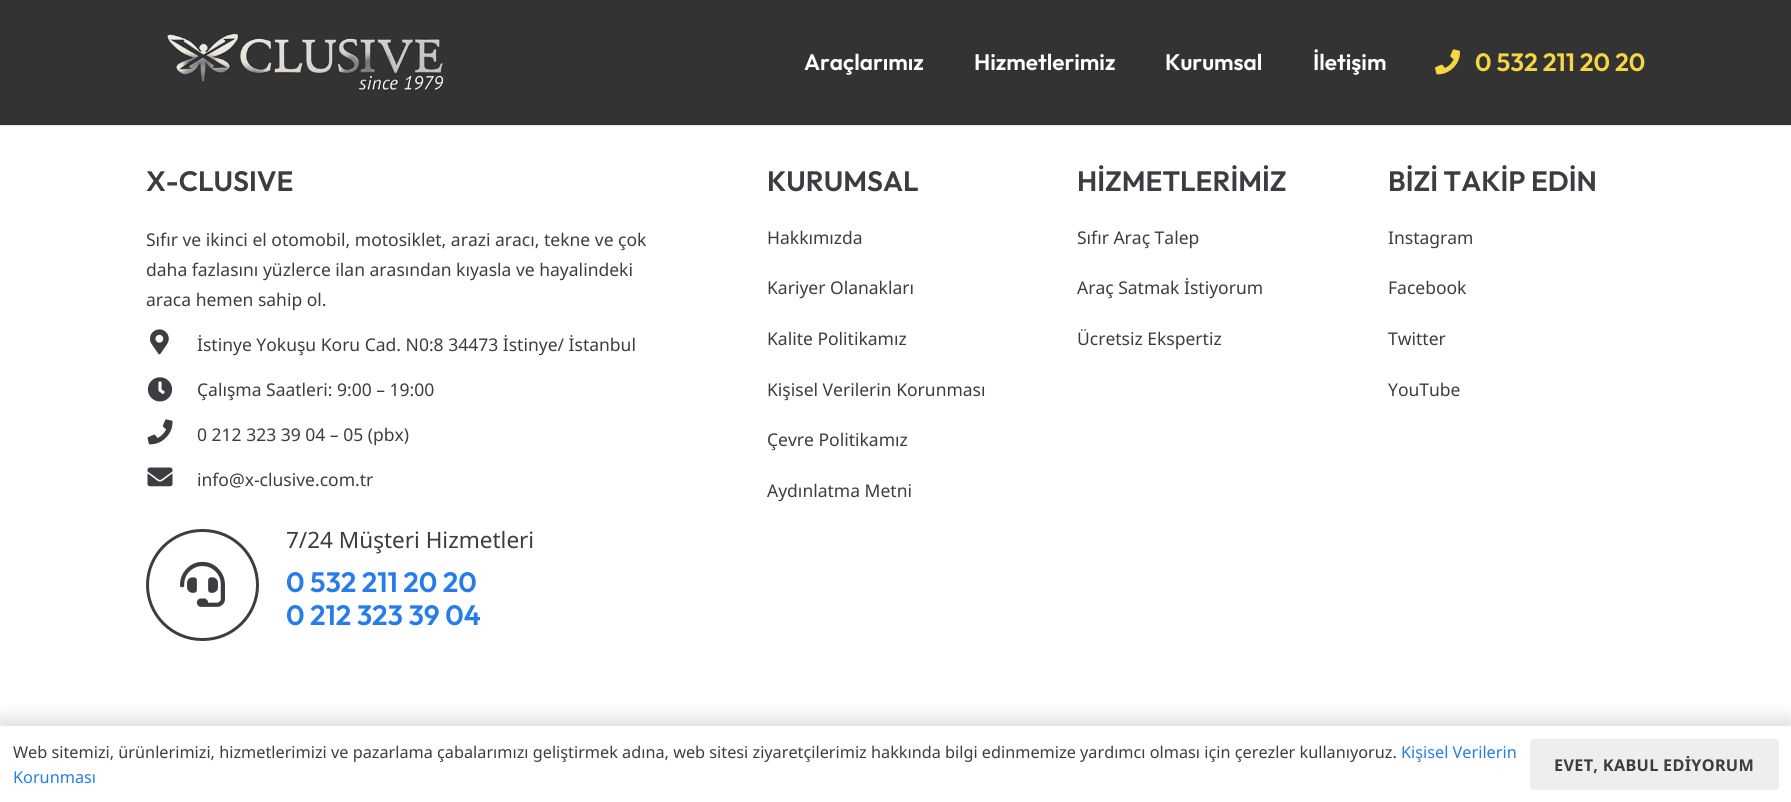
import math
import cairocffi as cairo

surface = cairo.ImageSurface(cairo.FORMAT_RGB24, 1791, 802)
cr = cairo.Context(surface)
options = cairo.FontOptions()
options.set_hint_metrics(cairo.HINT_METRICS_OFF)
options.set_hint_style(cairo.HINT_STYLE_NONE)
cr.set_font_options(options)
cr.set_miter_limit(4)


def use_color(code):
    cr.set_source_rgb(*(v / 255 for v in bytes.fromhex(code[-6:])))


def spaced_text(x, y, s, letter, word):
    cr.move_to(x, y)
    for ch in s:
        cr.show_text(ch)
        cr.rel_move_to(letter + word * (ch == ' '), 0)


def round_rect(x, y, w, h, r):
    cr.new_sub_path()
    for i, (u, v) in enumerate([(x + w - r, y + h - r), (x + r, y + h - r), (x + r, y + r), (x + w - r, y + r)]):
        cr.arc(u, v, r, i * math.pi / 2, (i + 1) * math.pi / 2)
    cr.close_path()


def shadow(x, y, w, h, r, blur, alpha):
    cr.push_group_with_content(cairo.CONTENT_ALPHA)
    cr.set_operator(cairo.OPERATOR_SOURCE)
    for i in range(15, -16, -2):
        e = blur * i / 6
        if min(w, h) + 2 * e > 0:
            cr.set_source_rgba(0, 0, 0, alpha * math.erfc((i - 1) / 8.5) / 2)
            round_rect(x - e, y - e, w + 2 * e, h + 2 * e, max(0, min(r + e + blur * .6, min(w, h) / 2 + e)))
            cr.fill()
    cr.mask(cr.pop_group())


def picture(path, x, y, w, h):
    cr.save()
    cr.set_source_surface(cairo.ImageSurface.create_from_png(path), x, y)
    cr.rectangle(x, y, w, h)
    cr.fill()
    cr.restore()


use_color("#ffffff")
cr.paint()
use_color("#ebebeb")
cr.rectangle(0, 125, 1791, 1)
cr.fill()
use_color("#333333")
cr.rectangle(0, 0, 1791, 125)
cr.fill()
picture("img1.png", 167, 33, 277, 58)
cr.select_font_face("Outfit Thin")
cr.set_font_size(22.5)
use_color("#ffffff")
cr.move_to(804, 70)
cr.show_text("Araçlarımız")
cr.move_to(974, 70)
cr.show_text("Hizmetlerimiz")
cr.move_to(1165, 70)
cr.show_text("Kurumsal")
cr.move_to(1313, 70)
cr.show_text("İletişim")
picture("img2.png", 1435, 49, 25, 26)
cr.set_font_size(25)
use_color("#f7d643")
cr.move_to(1475, 71)
cr.show_text("0 532 211 20 20")
cr.set_font_size(28)
use_color("#3b3d40")
cr.move_to(146, 191)
cr.show_text("X-CLUSIVE")
cr.select_font_face("Noto Sans")
cr.set_font_size(17.5)
cr.move_to(146, 246)
cr.show_text("Sıfır ve ikinci el otomobil, motosiklet, arazi aracı, tekne ve çok")
cr.move_to(146, 276)
cr.show_text("daha fazlasını yüzlerce ilan arasından kıyasla ve hayalindeki")
cr.move_to(146, 306)
cr.show_text("araca hemen sahip ol.")
picture("img3.png", 150, 329, 19, 26)
cr.move_to(197, 351)
cr.show_text("İstinye Yokuşu Koru Cad. N0:8 34473 İstinye/ İstanbul")
picture("img4.png", 147, 377, 26, 25)
cr.move_to(197, 396)
cr.show_text("Çalışma Saatleri: 9:00 – 19:00")
picture("img5.png", 147, 419, 26, 26)
cr.move_to(197, 441)
cr.show_text("0 212 323 39 04 – 05 (pbx)")
picture("img6.png", 147, 467, 26, 20)
cr.move_to(197, 486)
cr.show_text("info@x-clusive.com.tr")
round_rect(147.5, 530.5, 110, 109, 54.5)
cr.set_line_width(3)
cr.stroke()
picture("img7.png", 180, 561, 45, 46)
cr.set_font_size(22.5)
cr.move_to(286, 548)
cr.show_text("7/24 Müşteri Hizmetleri")
cr.select_font_face("Outfit Thin")
cr.set_font_size(28)
use_color("#277cea")
cr.move_to(286, 592)
cr.show_text("0 532 211 20 20")
cr.move_to(286, 625)
cr.show_text("0 212 323 39 04")
use_color("#3b3d40")
cr.move_to(767, 191)
cr.show_text("KURUMSAL")
cr.select_font_face("Noto Sans")
cr.set_font_size(17.5)
cr.move_to(767, 244)
cr.show_text("Hakkımızda")
cr.move_to(767, 294)
cr.show_text("Kariyer Olanakları")
cr.move_to(767, 345)
cr.show_text("Kalite Politikamız")
cr.move_to(767, 396)
cr.show_text("Kişisel Verilerin Korunması")
cr.move_to(767, 446)
cr.show_text("Çevre Politikamız")
cr.move_to(767, 497)
cr.show_text("Aydınlatma Metni")
cr.select_font_face("Outfit Thin")
cr.set_font_size(28)
cr.move_to(1077, 191)
cr.show_text("HİZMETLERİMİZ")
cr.select_font_face("Noto Sans")
cr.set_font_size(17.5)
cr.move_to(1077, 244)
cr.show_text("Sıfır Araç Talep")
cr.move_to(1077, 294)
cr.show_text("Araç Satmak İstiyorum")
cr.move_to(1077, 345)
cr.show_text("Ücretsiz Ekspertiz")
cr.select_font_face("Outfit Thin")
cr.set_font_size(28)
cr.move_to(1388, 191)
cr.show_text("BİZİ TAKİP EDİN")
cr.select_font_face("Noto Sans")
cr.set_font_size(17.5)
cr.move_to(1388, 244)
cr.show_text("Instagram")
cr.move_to(1388, 294)
cr.show_text("Facebook")
cr.move_to(1388, 345)
cr.show_text("Twitter")
cr.move_to(1388, 396)
cr.show_text("YouTube")
use_color("#000000")
shadow(0, 720, 1791, 76, 0, 9.5, 0.15)
use_color("#ffffff")
cr.rectangle(0, 726, 1791, 76)
cr.fill()
cr.set_font_size(16.25)
use_color("#3b3d40")
cr.move_to(13, 758)
cr.show_text("Web sitemizi, ürünlerimizi, hizmetlerimizi ve pazarlama çabalarımızı geliştirmek adına, web sitesi ziyaretçilerimiz hakkında bilgi edinmemize yardımcı olması için çerezler kullanıyoruz.")
use_color("#277cea")
cr.move_to(1401, 758)
cr.show_text("Kişisel Verilerin")
cr.move_to(13, 783)
cr.show_text("Korunması")
use_color("#eeeeee")
round_rect(1530, 739, 249, 51, 3)
cr.fill()
cr.select_font_face("Noto Sans", cairo.FONT_SLANT_NORMAL, cairo.FONT_WEIGHT_BOLD)
use_color("#3b3d40")
spaced_text(1554, 771, "EVET, KABUL EDİYORUM", 0.3, 0)
surface.write_to_png("result.png")
